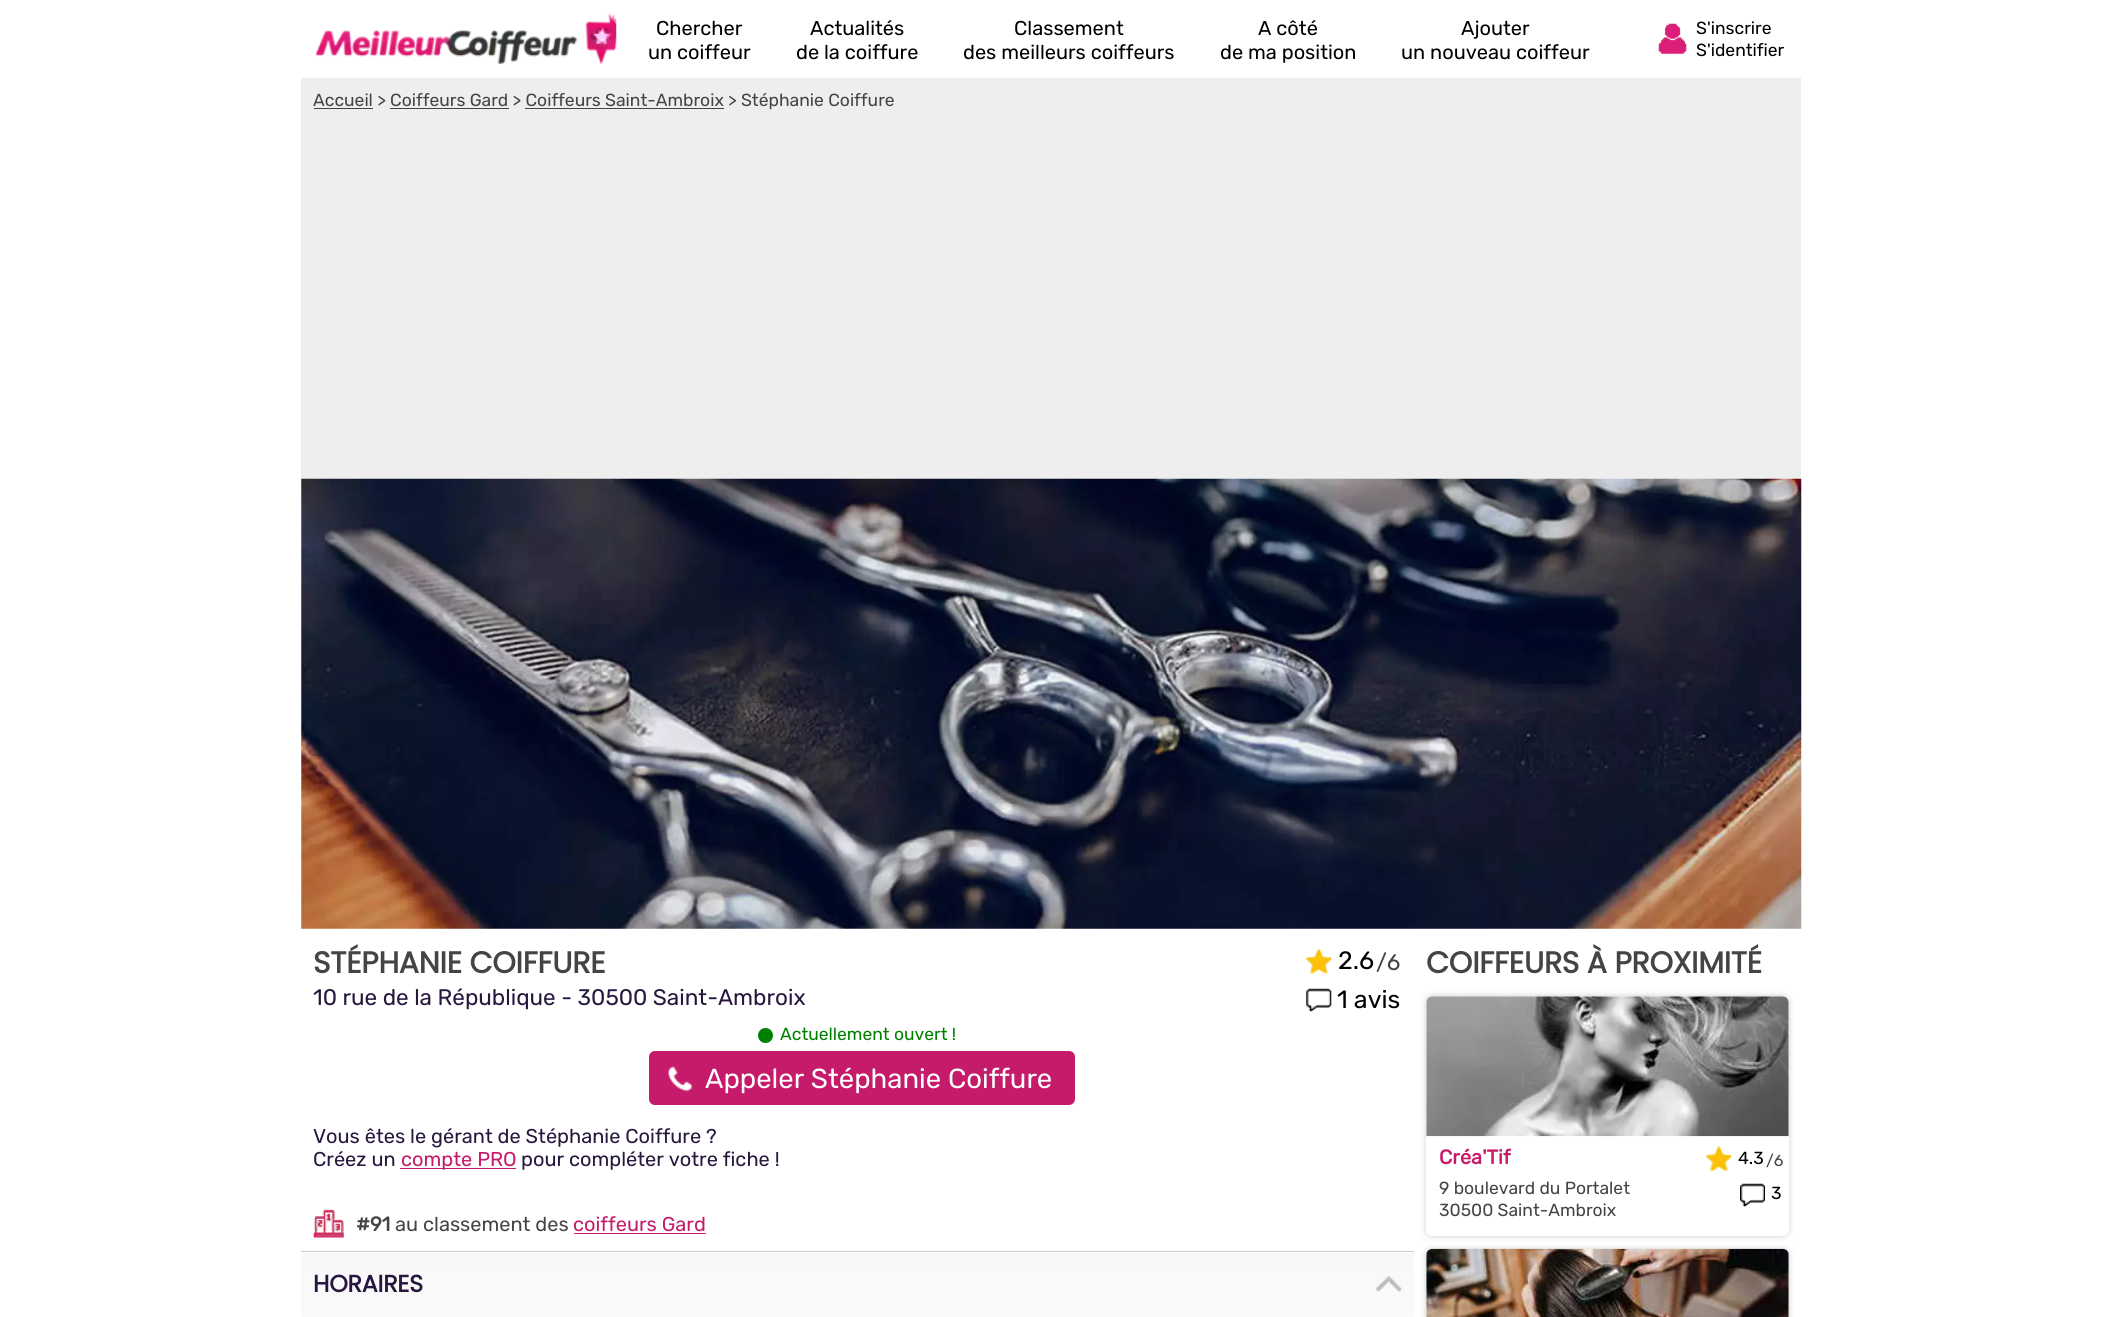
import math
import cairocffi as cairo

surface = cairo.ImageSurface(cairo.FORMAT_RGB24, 2101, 1317)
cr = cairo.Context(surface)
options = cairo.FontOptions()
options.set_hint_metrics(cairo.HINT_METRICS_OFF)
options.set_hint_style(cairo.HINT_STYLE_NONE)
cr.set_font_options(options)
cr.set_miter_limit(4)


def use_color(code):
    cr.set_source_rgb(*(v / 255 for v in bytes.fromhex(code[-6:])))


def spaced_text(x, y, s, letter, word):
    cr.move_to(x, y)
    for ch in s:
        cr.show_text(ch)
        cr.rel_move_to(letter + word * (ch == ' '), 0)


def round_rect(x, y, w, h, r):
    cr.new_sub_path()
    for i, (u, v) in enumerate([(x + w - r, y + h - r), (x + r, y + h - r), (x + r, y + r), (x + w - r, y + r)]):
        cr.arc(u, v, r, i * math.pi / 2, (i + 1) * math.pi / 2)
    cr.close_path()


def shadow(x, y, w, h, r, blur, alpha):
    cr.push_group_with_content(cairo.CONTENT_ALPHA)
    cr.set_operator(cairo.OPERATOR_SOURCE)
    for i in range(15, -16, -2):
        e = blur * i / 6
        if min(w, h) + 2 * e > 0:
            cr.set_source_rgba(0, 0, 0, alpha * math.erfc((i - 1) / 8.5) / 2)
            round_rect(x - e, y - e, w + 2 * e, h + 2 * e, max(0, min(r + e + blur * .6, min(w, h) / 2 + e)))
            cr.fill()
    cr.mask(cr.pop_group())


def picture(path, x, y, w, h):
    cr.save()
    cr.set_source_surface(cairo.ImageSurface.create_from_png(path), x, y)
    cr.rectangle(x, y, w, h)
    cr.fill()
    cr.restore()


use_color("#ffffff")
cr.paint()
cr.select_font_face("Rubik Light")
cr.set_font_size(20)
use_color("#000000")
cr.move_to(656, 35)
cr.show_text("Chercher")
cr.move_to(648, 59)
cr.show_text("un coiffeur")
cr.move_to(810, 35)
cr.show_text("Actualités")
cr.move_to(796, 59)
cr.show_text("de la coiffure")
cr.move_to(1014, 35)
cr.show_text("Classement")
cr.move_to(963, 59)
cr.show_text("des meilleurs coiffeurs")
cr.move_to(1258, 35)
cr.show_text("A côté")
cr.move_to(1220, 59)
cr.show_text("de ma position")
cr.move_to(1461, 35)
cr.show_text("Ajouter")
cr.move_to(1401, 59)
cr.show_text("un nouveau coiffeur")
picture("img1.png", 316, 13, 301, 51)
picture("img2.png", 1658, 23, 29, 31)
cr.set_font_size(17.5)
cr.move_to(1696, 34)
cr.show_text("S'inscrire")
cr.move_to(1696, 56)
cr.show_text("S'identifier")
use_color("#eeeeee")
cr.rectangle(301, 78, 1500, 401)
cr.fill()
use_color("#444444")
cr.rectangle(314, 108, 59, 1)
cr.fill()
cr.move_to(313, 106)
cr.show_text("Accueil > Coiffeurs Gard > Coiffeurs Saint-Ambroix > Stéphanie Coiffure")
cr.rectangle(390, 108, 119, 1)
cr.fill()
cr.rectangle(525, 108, 199, 1)
cr.fill()
picture("img3.png", 301, 478, 1501, 451)
cr.select_font_face("Poppins", cairo.FONT_SLANT_NORMAL, cairo.FONT_WEIGHT_BOLD)
cr.set_font_size(30)
spaced_text(313, 973, "STÉPHANIE COIFFURE", -0.3, 0)
cr.select_font_face("Rubik Light")
cr.set_font_size(22.5)
use_color("#27173e")
cr.move_to(313, 1005)
cr.show_text("10 rue de la République - 30500 Saint-Ambroix")
picture("img4.png", 1306, 948, 26, 26)
cr.set_font_size(25)
use_color("#000000")
cr.move_to(1338, 969)
cr.show_text("2.6")
cr.set_font_size(22.5)
use_color("#444444")
cr.move_to(1376, 970)
cr.show_text("/6")
picture("img5.png", 1306, 988, 26, 24)
cr.set_font_size(25)
use_color("#000000")
cr.move_to(1337, 1008)
cr.show_text("1 avis")
use_color("#008000")
cr.new_path()
cr.arc(765.5, 1035.5, 7.5, 0, 2 * math.pi)
cr.fill()
cr.set_font_size(17.5)
cr.move_to(780, 1040)
cr.show_text("Actuellement ouvert !")
use_color("#c51b6a")
round_rect(649, 1051, 426, 54, 6)
cr.fill()
picture("img6.png", 667, 1066, 26, 26)
cr.set_font_size(27.5)
use_color("#ffffff")
cr.move_to(705, 1088)
cr.show_text("Appeler Stéphanie Coiffure")
cr.set_font_size(20)
use_color("#27173e")
cr.move_to(313, 1143)
cr.show_text("Vous êtes le gérant de Stéphanie Coiffure ?")
cr.move_to(313, 1166)
cr.show_text("Créez un")
use_color("#c51b6a")
cr.rectangle(400, 1168, 116, 1)
cr.fill()
cr.move_to(401, 1166)
cr.show_text("compte PRO")
use_color("#27173e")
cr.move_to(521, 1166)
cr.show_text("pour compléter votre fiche !")
picture("img7.png", 313, 1209, 31, 29)
cr.select_font_face("Rubik", cairo.FONT_SLANT_NORMAL, cairo.FONT_WEIGHT_BOLD)
use_color("#444444")
cr.move_to(356, 1231)
cr.show_text("#91")
cr.select_font_face("Rubik Light")
cr.move_to(395, 1231)
cr.show_text("au classement des")
use_color("#c51b6a")
cr.move_to(573, 1231)
cr.show_text("coiffeurs Gard")
cr.rectangle(574, 1233, 132, 1)
cr.fill()
gradient = cairo.LinearGradient(858, 1253, 858, 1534)
gradient.add_color_stop_rgba(0, 0.973, 0.973, 0.973, 1)
gradient.add_color_stop_rgba(1, 1, 1, 1, 1)
cr.set_source(gradient)
cr.rectangle(301, 1253, 1113, 64)
cr.fill()
use_color("#cccccc")
cr.rectangle(301, 1251, 1113, 1)
cr.fill()
cr.select_font_face("Poppins", cairo.FONT_SLANT_NORMAL, cairo.FONT_WEIGHT_BOLD)
cr.set_font_size(23.75)
use_color("#27173e")
spaced_text(313, 1292, "HORAIRES", -0.25, 0)
picture("img8.png", 1376, 1276, 26, 16)
cr.set_font_size(30)
use_color("#444444")
spaced_text(1426, 973, "COIFFEURS À PROXIMITÉ", -0.3, 0)
use_color("#cccccc")
shadow(1426, 996, 363, 240, 6, 3, 1)
use_color("#ffffff")
round_rect(1426, 996, 363, 240, 6)
cr.fill()
picture("img9.png", 1426, 996, 363, 141)
cr.select_font_face("Rubik", cairo.FONT_SLANT_NORMAL, cairo.FONT_WEIGHT_BOLD)
cr.set_font_size(20)
use_color("#c51b6a")
cr.move_to(1439, 1164)
cr.show_text("Créa'Tif")
cr.select_font_face("Rubik Light")
cr.set_font_size(17.5)
use_color("#444444")
cr.move_to(1439, 1194)
cr.show_text("9 boulevard du Portalet")
cr.move_to(1439, 1216)
cr.show_text("30500 Saint-Ambroix")
picture("img10.png", 1706, 1146, 26, 26)
use_color("#000000")
cr.move_to(1738, 1164)
cr.show_text("4.3")
cr.set_font_size(16)
use_color("#444444")
cr.move_to(1766, 1166)
cr.show_text("/6")
picture("img11.png", 1740, 1183, 25, 24)
cr.set_font_size(17.5)
use_color("#000000")
cr.move_to(1771, 1199)
cr.show_text("3")
use_color("#cccccc")
shadow(1426, 1249, 363, 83, 6, 3, 1)
use_color("#ffffff")
round_rect(1426, 1249, 363, 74, 6)
cr.fill()
picture("img12.png", 1426, 1248, 363, 69)
surface.write_to_png("result.png")
